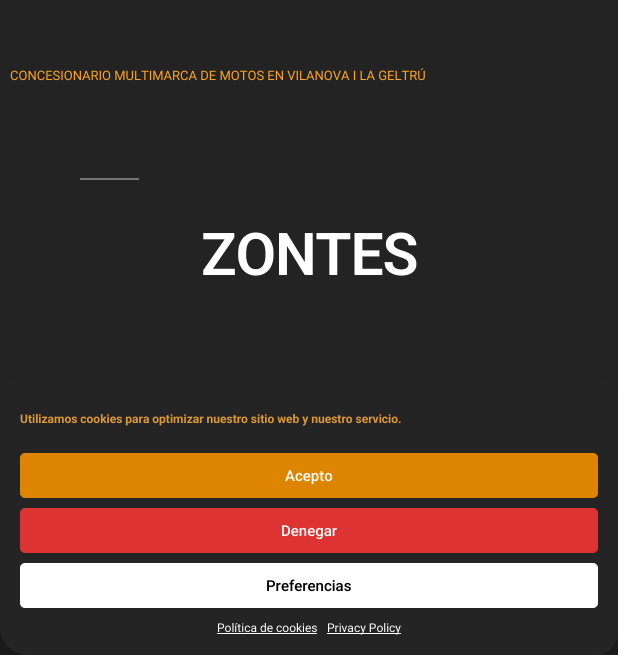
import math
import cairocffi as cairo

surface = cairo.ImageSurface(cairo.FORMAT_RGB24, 618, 655)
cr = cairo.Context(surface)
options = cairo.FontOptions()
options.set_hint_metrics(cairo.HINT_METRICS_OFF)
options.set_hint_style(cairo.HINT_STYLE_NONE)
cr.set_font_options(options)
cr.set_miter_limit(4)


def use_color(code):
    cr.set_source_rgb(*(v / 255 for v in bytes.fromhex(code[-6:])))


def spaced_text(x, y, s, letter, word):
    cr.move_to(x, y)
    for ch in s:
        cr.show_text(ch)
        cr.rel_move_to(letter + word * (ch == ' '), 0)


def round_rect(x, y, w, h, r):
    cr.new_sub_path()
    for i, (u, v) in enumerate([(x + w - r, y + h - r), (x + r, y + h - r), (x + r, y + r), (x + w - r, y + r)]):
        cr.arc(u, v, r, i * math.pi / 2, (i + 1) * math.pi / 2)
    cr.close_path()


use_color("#232323")
cr.paint()
cr.select_font_face("Roboto")
cr.set_font_size(13)
use_color("#ffa41b")
cr.move_to(10, 80)
cr.show_text("CONCESIONARIO MULTIMARCA DE MOTOS EN VILANOVA I LA GELTRÚ")
use_color("#767676")
cr.rectangle(80, 178, 59, 2)
cr.fill()
cr.select_font_face("Roboto SemiBold")
cr.set_font_size(59)
use_color("#ffffff")
spaced_text(201, 275, "ZONTES", -1.25, 0)
use_color("#1b1a1a")
cr.rectangle(0, 627, 618, 28)
cr.fill()
use_color("#242424")
cr.new_path()
cr.move_to(28, 375)
cr.line_to(590, 375)
cr.curve_to(605.5, 375, 618, 387.5, 618, 403)
cr.line_to(618, 633)
cr.curve_to(618, 645, 608, 655, 596, 655)
cr.line_to(28, 655)
cr.curve_to(12.5, 655, 0, 642.5, 0, 627)
cr.line_to(0, 403)
cr.curve_to(0, 387.5, 12.5, 375, 28, 375)
cr.close_path()
cr.fill()
cr.select_font_face("Roboto", cairo.FONT_SLANT_NORMAL, cairo.FONT_WEIGHT_BOLD)
cr.set_font_size(12)
use_color("#dd9933")
cr.move_to(20, 423)
cr.show_text("Utilizamos cookies para optimizar nuestro sitio web y nuestro servicio.")
use_color("#dd8500")
round_rect(20.5, 453.5, 577, 44, 4.5)
cr.fill_preserve()
cr.set_line_width(1)
cr.stroke()
cr.select_font_face("Roboto Medium")
cr.set_font_size(15)
use_color("#ffffff")
cr.move_to(285, 481)
cr.show_text("Acepto")
use_color("#dd3333")
round_rect(20.5, 508.5, 577, 44, 4.5)
cr.fill_preserve()
cr.stroke()
use_color("#ffffff")
cr.move_to(281, 536)
cr.show_text("Denegar")
round_rect(20.5, 563.5, 577, 44, 4.5)
cr.fill_preserve()
cr.stroke()
use_color("#000000")
cr.move_to(266, 591)
cr.show_text("Preferencias")
cr.select_font_face("Roboto")
cr.set_font_size(12)
use_color("#ffffff")
cr.move_to(217, 632)
cr.show_text("Política de cookies")
cr.rectangle(217, 633, 100, 1)
cr.fill()
cr.rectangle(327, 633, 74, 1)
cr.fill()
cr.move_to(327, 632)
cr.show_text("Privacy Policy")
surface.write_to_png("result.png")
